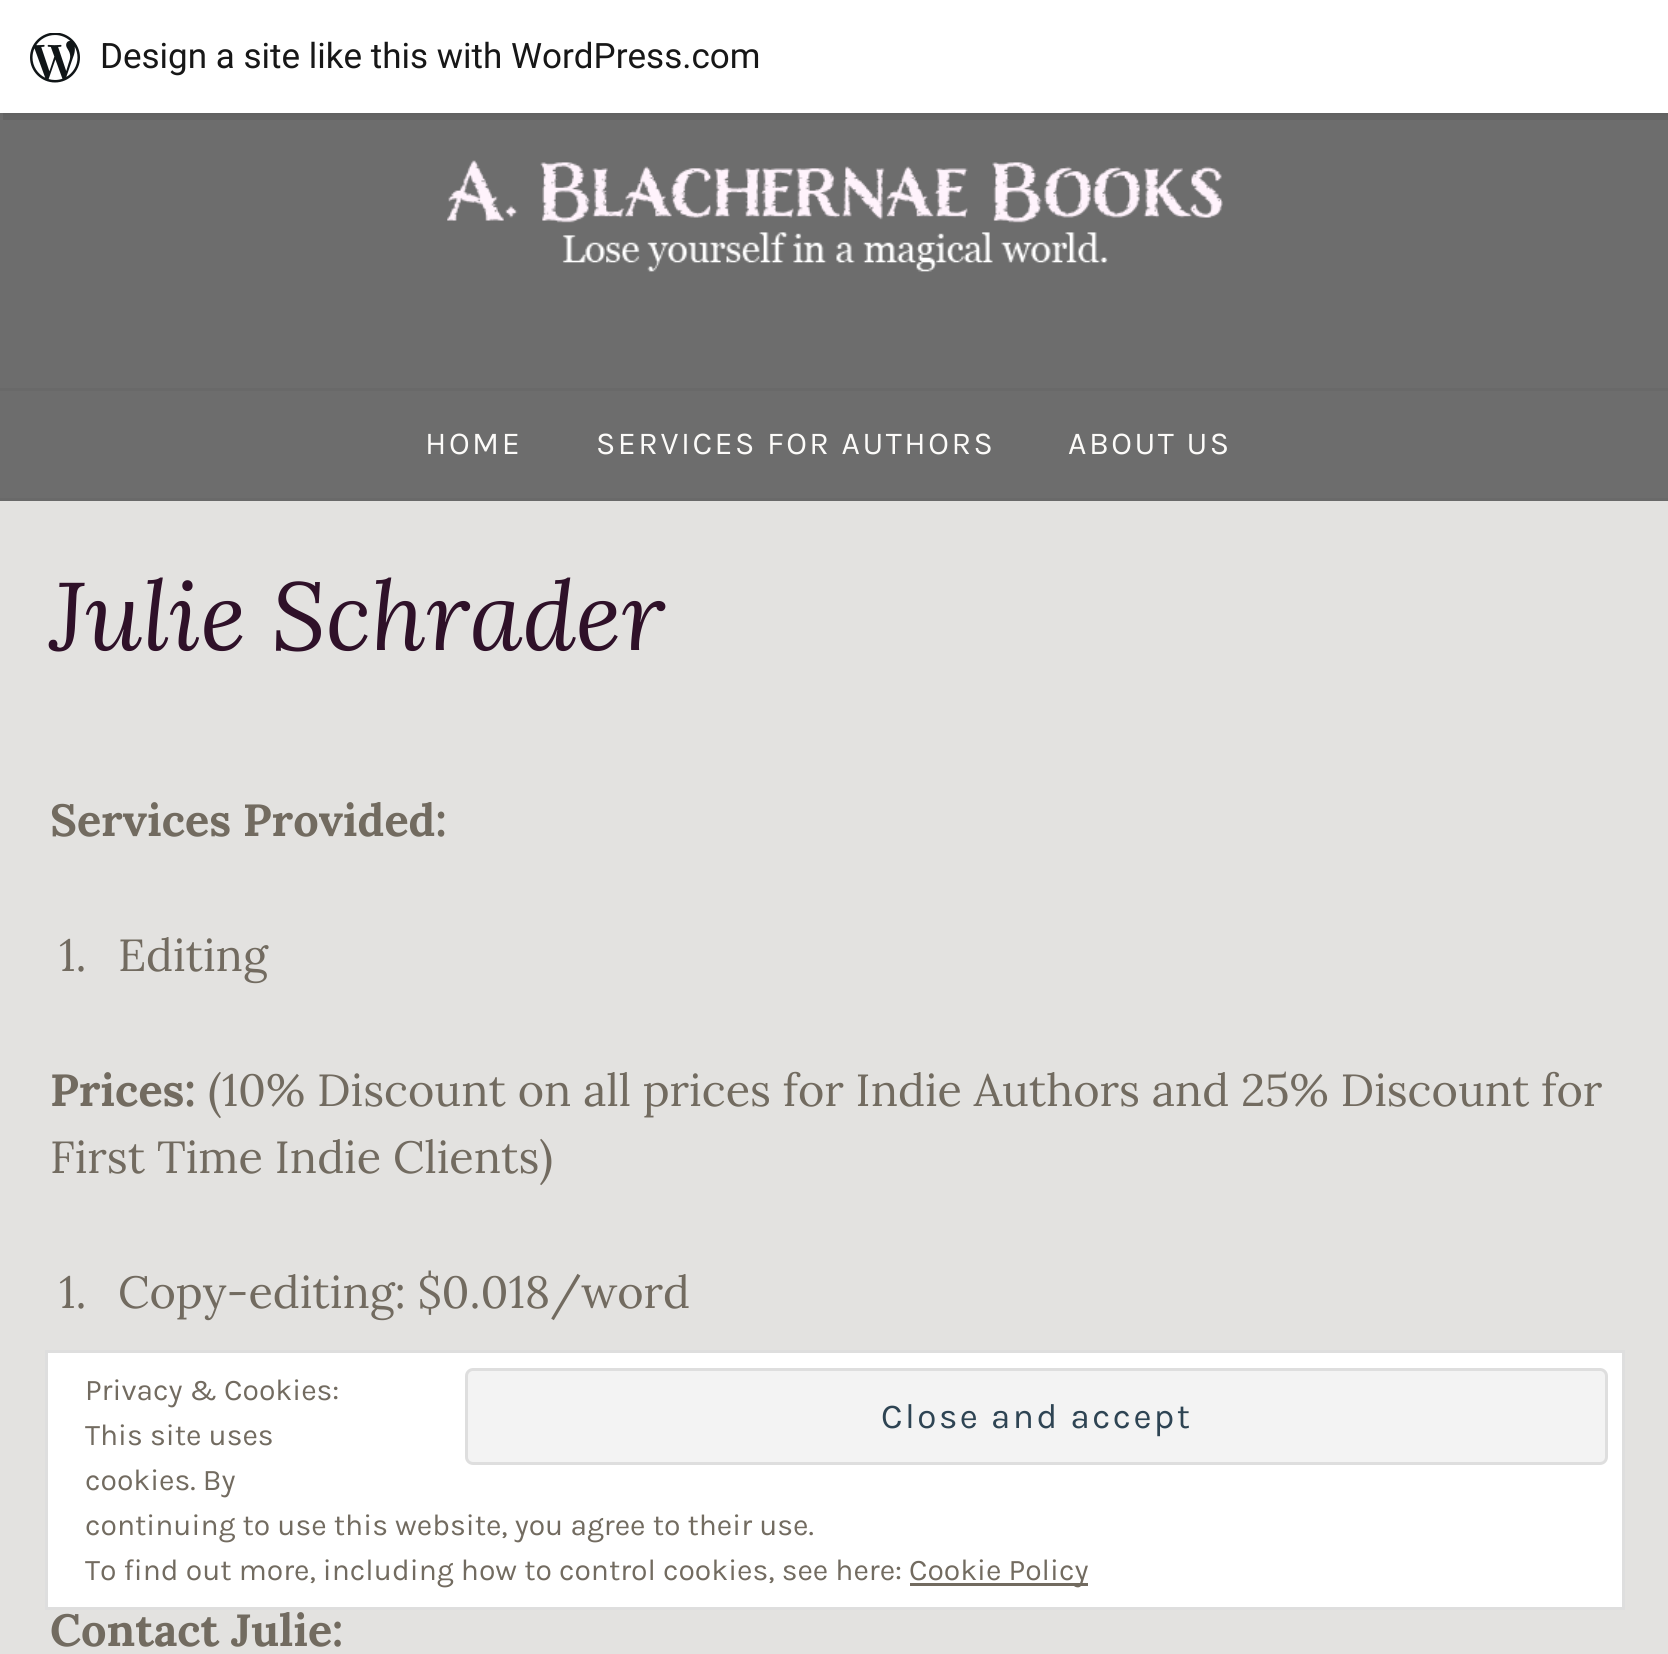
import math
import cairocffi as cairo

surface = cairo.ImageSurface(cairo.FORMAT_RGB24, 1668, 1654)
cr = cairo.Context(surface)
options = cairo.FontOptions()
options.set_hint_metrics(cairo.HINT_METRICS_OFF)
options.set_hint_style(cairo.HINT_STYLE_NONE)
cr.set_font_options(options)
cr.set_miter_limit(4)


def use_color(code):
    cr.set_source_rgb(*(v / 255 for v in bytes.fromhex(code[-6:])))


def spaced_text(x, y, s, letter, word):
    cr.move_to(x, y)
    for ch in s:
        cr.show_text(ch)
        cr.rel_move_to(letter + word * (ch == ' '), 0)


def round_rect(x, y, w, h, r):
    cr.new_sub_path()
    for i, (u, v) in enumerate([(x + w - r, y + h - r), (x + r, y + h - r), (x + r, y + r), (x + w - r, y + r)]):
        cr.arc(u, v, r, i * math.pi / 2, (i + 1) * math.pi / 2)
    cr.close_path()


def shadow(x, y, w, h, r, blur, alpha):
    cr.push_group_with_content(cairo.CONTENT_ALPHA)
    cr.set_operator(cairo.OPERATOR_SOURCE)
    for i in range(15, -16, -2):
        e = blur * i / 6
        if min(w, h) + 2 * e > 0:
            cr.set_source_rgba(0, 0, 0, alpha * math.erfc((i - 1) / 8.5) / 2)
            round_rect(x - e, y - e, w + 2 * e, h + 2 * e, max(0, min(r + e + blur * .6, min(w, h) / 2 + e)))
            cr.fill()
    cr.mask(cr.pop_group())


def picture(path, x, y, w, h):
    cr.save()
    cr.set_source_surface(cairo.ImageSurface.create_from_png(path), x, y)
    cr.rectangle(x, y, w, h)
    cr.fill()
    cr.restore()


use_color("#e3e2e0")
cr.paint()
use_color("#6d6d6d")
cr.rectangle(0, 113, 1668, 385)
cr.fill()
use_color("#000000")
shadow(0, 3, 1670, 112, 0, 2.5, 0.05)
cr.set_source_rgba(0, 0, 0, 0.08)
cr.new_path()
cr.move_to(3, 112)
cr.line_to(3, 120)
cr.line_to(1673, 120)
cr.line_to(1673, 8)
cr.line_to(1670, 8)
cr.line_to(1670, 112)
cr.close_path()
cr.fill()
use_color("#ffffff")
cr.rectangle(0, 0, 1668, 113)
cr.fill()
picture("img1.png", 30, 33, 50, 50)
cr.select_font_face("Roboto")
cr.set_font_size(35)
use_color("#171717")
cr.move_to(100, 68)
cr.show_text("Design a site like this with WordPress.com")
picture("img2.png", 447, 160, 776, 112)
use_color("#696969")
cr.rectangle(0, 388, 1668, 3)
cr.fill()
cr.rectangle(0, 498, 1668, 3)
cr.fill()
cr.select_font_face("Karla")
cr.set_font_size(32)
use_color("#fcfbf9")
spaced_text(425, 454, "HOME", 2.5, 0)
spaced_text(596, 454, "SERVICES FOR AUTHORS", 2.5, 0)
spaced_text(1068, 454, "ABOUT US", 2.5, 0)
cr.select_font_face("Lora", cairo.FONT_SLANT_ITALIC)
cr.set_font_size(96)
use_color("#2f1129")
cr.move_to(50, 650)
cr.show_text("Julie Schrader")
cr.select_font_face("Lora", cairo.FONT_SLANT_NORMAL, cairo.FONT_WEIGHT_BOLD)
cr.set_font_size(45)
use_color("#726b60")
cr.move_to(50, 836)
cr.show_text("Services Provided:")
cr.select_font_face("Lora")
cr.move_to(59, 971)
cr.show_text("1.")
cr.move_to(118, 971)
cr.show_text("Editing")
cr.select_font_face("Lora", cairo.FONT_SLANT_NORMAL, cairo.FONT_WEIGHT_BOLD)
cr.move_to(50, 1106)
cr.show_text("Prices:")
cr.select_font_face("Lora")
cr.move_to(208, 1106)
cr.show_text("(10% Discount on all prices for Indie Authors and 25% Discount for")
cr.move_to(50, 1173)
cr.show_text("First Time Indie Clients)")
cr.move_to(59, 1308)
cr.show_text("1.")
cr.move_to(118, 1308)
cr.show_text("Copy-editing: $0.018/word")
cr.select_font_face("Lora", cairo.FONT_SLANT_NORMAL, cairo.FONT_WEIGHT_BOLD)
cr.move_to(50, 1646)
cr.show_text("Contact Julie:")
use_color("#ffffff")
cr.rectangle(46.5, 1351.5, 1577, 257)
cr.fill_preserve()
use_color("#dedede")
cr.set_line_width(3)
cr.stroke()
cr.select_font_face("Karla")
cr.set_font_size(30)
use_color("#726b60")
cr.move_to(85, 1400)
cr.show_text("Privacy & Cookies:")
cr.move_to(85, 1445)
cr.show_text("This site uses")
use_color("#f3f3f3")
round_rect(466.5, 1369.5, 1140, 94, 6.5)
cr.fill_preserve()
use_color("#dedede")
cr.stroke()
cr.set_font_size(35)
use_color("#2e4453")
spaced_text(881, 1428, "Close and accept", 2.5, 0)
cr.set_font_size(30)
use_color("#726b60")
cr.move_to(85, 1490)
cr.show_text("cookies. By")
cr.move_to(85, 1535)
cr.show_text("continuing to use this website, you agree to their use.")
cr.move_to(85, 1580)
cr.show_text("To find out more, including how to control cookies, see here:")
cr.rectangle(910, 1583, 178, 3)
cr.fill()
cr.move_to(909, 1580)
cr.show_text("Cookie Policy")
surface.write_to_png("result.png")
